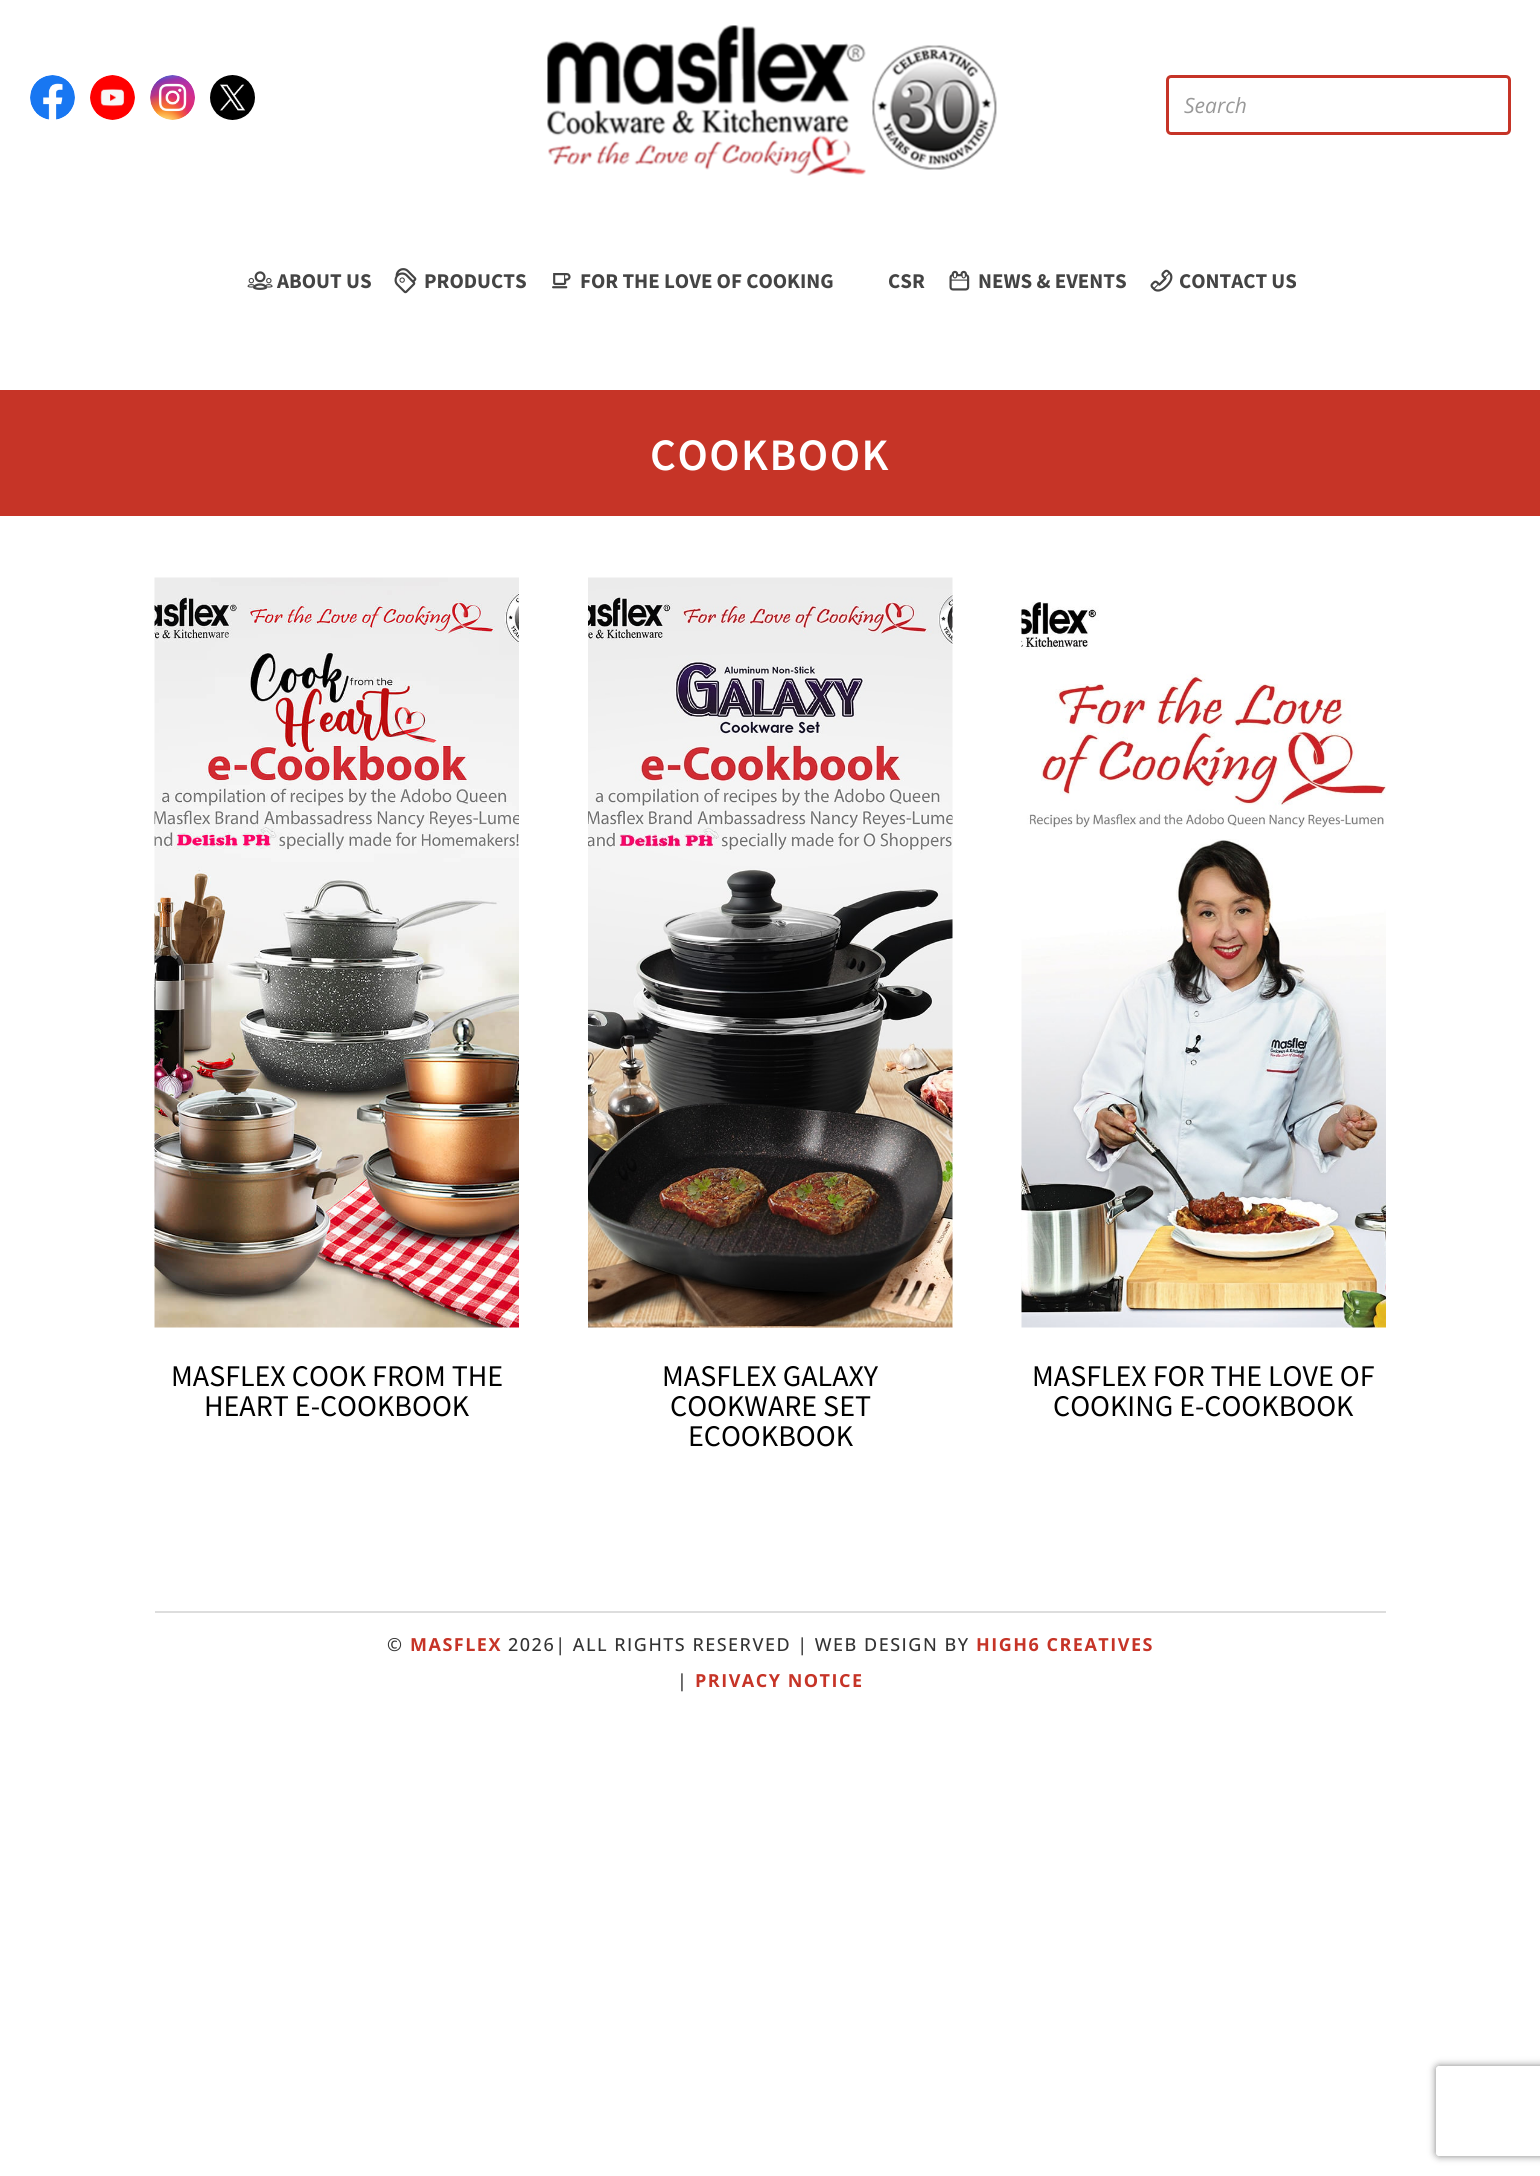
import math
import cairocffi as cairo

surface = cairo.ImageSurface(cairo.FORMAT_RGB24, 1540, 2176)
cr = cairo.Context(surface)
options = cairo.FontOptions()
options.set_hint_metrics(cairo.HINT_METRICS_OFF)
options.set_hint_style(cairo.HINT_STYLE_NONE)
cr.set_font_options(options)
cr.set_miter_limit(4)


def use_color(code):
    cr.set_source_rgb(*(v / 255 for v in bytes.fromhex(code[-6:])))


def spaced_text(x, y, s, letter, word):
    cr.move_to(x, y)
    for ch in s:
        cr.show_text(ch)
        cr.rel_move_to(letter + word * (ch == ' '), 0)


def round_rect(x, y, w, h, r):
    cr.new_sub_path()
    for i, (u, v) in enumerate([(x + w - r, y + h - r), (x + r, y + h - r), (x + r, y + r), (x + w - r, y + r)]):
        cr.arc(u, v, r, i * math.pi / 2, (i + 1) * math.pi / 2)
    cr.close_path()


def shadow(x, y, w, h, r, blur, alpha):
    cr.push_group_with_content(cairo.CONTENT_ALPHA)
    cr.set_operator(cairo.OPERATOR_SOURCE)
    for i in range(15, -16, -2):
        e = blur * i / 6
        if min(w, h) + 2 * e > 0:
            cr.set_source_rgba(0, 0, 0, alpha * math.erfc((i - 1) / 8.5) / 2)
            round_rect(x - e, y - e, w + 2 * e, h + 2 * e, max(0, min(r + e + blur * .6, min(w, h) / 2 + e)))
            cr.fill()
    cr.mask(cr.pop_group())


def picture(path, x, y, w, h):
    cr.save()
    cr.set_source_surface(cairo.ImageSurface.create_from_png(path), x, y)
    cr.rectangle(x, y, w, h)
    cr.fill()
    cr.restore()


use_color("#ffffff")
cr.paint()
picture("img1.png", 30, 75, 45, 45)
picture("img2.png", 90, 75, 45, 45)
picture("img3.png", 150, 75, 45, 45)
picture("img4.png", 210, 75, 45, 45)
round_rect(1167.5, 76.5, 342, 57, 3.5)
use_color("#c63427")
cr.set_line_width(3)
cr.stroke()
cr.select_font_face("Open Sans", cairo.FONT_SLANT_ITALIC)
cr.set_font_size(21)
use_color("#999999")
cr.move_to(1184, 113)
cr.show_text("Search")
picture("img5.png", 547, 25, 450, 151)
picture("img6.png", 247, 271, 26, 19)
cr.select_font_face("Source Sans Pro", cairo.FONT_SLANT_NORMAL, cairo.FONT_WEIGHT_BOLD)
use_color("#444444")
cr.move_to(277, 288)
cr.show_text("ABOUT US")
picture("img7.png", 394, 268, 23, 26)
cr.move_to(424, 288)
cr.show_text("PRODUCTS")
picture("img8.png", 552, 273, 19, 16)
cr.move_to(580, 288)
cr.show_text("FOR THE LOVE OF COOKING")
cr.move_to(888, 288)
cr.show_text("CSR")
picture("img9.png", 949, 270, 21, 21)
cr.move_to(978, 288)
cr.show_text("NEWS & EVENTS")
picture("img10.png", 1150, 269, 23, 23)
cr.move_to(1179, 288)
cr.show_text("CONTACT US")
use_color("#c63427")
cr.rectangle(0, 390, 1540, 126)
cr.fill()
cr.select_font_face("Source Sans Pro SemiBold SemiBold")
cr.set_font_size(45)
use_color("#ffffff")
spaced_text(650, 470, "COOKBOOK", 1.5, 0)
picture("img11.png", 154, 577, 365, 751)
cr.select_font_face("Source Sans Pro")
cr.set_font_size(30)
use_color("#000000")
cr.move_to(171, 1386)
cr.show_text("MASFLEX COOK FROM THE")
cr.move_to(204, 1416)
cr.show_text("HEART E-COOKBOOK")
picture("img12.png", 588, 577, 365, 751)
cr.move_to(662, 1386)
cr.show_text("MASFLEX GALAXY")
cr.move_to(670, 1416)
cr.show_text("COOKWARE SET")
cr.move_to(688, 1446)
cr.show_text("ECOOKBOOK")
picture("img13.png", 1021, 602, 365, 726)
cr.move_to(1032, 1386)
cr.show_text("MASFLEX FOR THE LOVE OF")
cr.move_to(1053, 1416)
cr.show_text("COOKING E-COOKBOOK")
use_color("#dddddd")
cr.rectangle(155, 1611, 1231, 2)
cr.fill()
cr.select_font_face("Open Sans Medium")
cr.set_font_size(18)
use_color("#333333")
spaced_text(387, 1651, "©", 1.5, 0)
cr.select_font_face("Open Sans", cairo.FONT_SLANT_NORMAL, cairo.FONT_WEIGHT_BOLD)
use_color("#c63427")
spaced_text(410, 1651, "MASFLEX", 1.5, 0)
cr.select_font_face("Open Sans Medium")
use_color("#333333")
spaced_text(508, 1651, "2026| ALL RIGHTS RESERVED | WEB DESIGN BY", 1.5, 0)
cr.select_font_face("Open Sans", cairo.FONT_SLANT_NORMAL, cairo.FONT_WEIGHT_BOLD)
use_color("#c63427")
spaced_text(976, 1651, "HIGH6 CREATIVES", 1.5, 0)
cr.select_font_face("Open Sans Medium")
use_color("#333333")
spaced_text(677, 1687, "|", 1.5, 0)
cr.select_font_face("Open Sans", cairo.FONT_SLANT_NORMAL, cairo.FONT_WEIGHT_BOLD)
use_color("#c63427")
spaced_text(695, 1687, "PRIVACY NOTICE", 1.5, 0)
cr.save()
cr.set_fill_rule(cairo.FILL_RULE_EVEN_ODD)
cr.new_path()
cr.move_to(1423, 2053)
cr.line_to(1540, 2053)
cr.line_to(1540, 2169)
cr.line_to(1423, 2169)
cr.close_path()
cr.move_to(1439, 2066)
cr.line_to(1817, 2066)
cr.curve_to(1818.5, 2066, 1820, 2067.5, 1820, 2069)
cr.line_to(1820, 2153)
cr.curve_to(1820, 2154.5, 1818.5, 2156, 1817, 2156)
cr.line_to(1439, 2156)
cr.curve_to(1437.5, 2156, 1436, 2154.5, 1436, 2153)
cr.line_to(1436, 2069)
cr.curve_to(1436, 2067.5, 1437.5, 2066, 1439, 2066)
cr.close_path()
cr.clip()
use_color("#808080")
shadow(1436, 2066, 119, 90, 3, 4, 1)
cr.restore()
surface.write_to_png("result.png")
